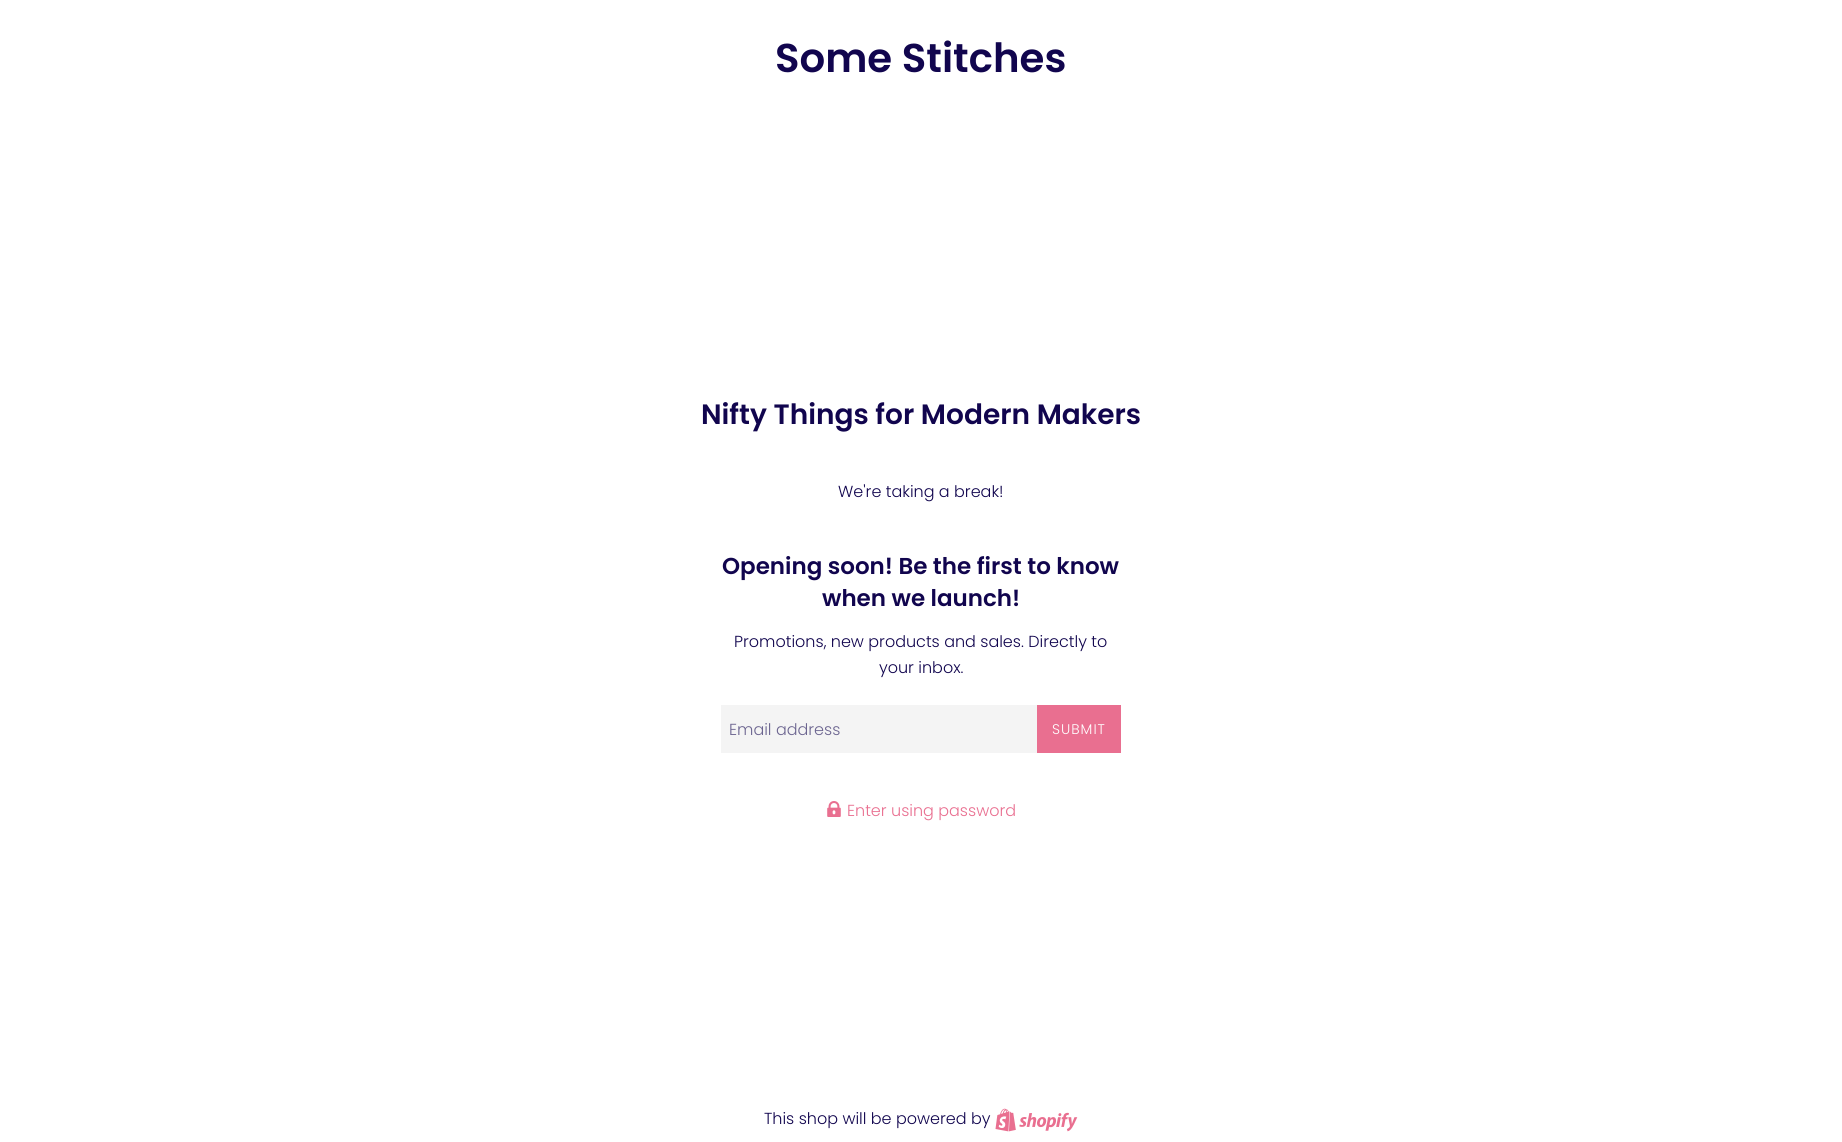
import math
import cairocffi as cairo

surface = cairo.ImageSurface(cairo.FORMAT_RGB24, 1842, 1142)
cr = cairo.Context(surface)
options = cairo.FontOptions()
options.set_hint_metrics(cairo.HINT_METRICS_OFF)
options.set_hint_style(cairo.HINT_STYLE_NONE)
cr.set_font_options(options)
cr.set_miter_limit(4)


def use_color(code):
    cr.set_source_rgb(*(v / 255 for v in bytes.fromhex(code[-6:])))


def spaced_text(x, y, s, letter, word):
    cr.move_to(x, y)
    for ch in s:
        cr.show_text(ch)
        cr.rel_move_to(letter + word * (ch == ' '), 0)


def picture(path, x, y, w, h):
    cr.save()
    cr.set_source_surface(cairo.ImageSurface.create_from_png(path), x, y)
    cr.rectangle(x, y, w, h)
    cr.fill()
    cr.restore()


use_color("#ffffff")
cr.paint()
cr.select_font_face("Poppins SemiBold")
cr.set_font_size(40.25)
use_color("#11054e")
cr.move_to(775, 72)
cr.show_text("Some Stitches")
cr.set_font_size(28)
cr.move_to(701, 424)
cr.show_text("Nifty Things for Modern Makers")
cr.select_font_face("Poppins Light")
cr.set_font_size(16)
cr.move_to(838, 497)
cr.show_text("We're taking a break!")
cr.select_font_face("Poppins SemiBold")
cr.set_font_size(23)
cr.move_to(722, 574)
cr.show_text("Opening soon! Be the first to know")
cr.move_to(822, 606)
cr.show_text("when we launch!")
cr.select_font_face("Poppins Light")
cr.set_font_size(16)
cr.move_to(734, 647)
cr.show_text("Promotions, new products and sales. Directly to")
cr.move_to(879, 673)
cr.show_text("your inbox.")
use_color("#f4f4f4")
cr.rectangle(721, 705, 316, 48)
cr.fill()
use_color("#6c6590")
cr.move_to(729, 735)
cr.show_text("Email address")
use_color("#e96f90")
cr.rectangle(1037, 705, 84, 48)
cr.fill()
cr.set_font_size(14)
use_color("#ffffff")
spaced_text(1052, 734, "SUBMIT", 1, 0)
picture("img1.png", 827, 801, 14, 16)
cr.set_font_size(16)
use_color("#e96f90")
cr.move_to(847, 816)
cr.show_text("Enter using password")
use_color("#11054e")
cr.move_to(764, 1124)
cr.show_text("This shop will be powered by")
picture("img2.png", 995, 1108, 83, 24)
surface.write_to_png("result.png")
